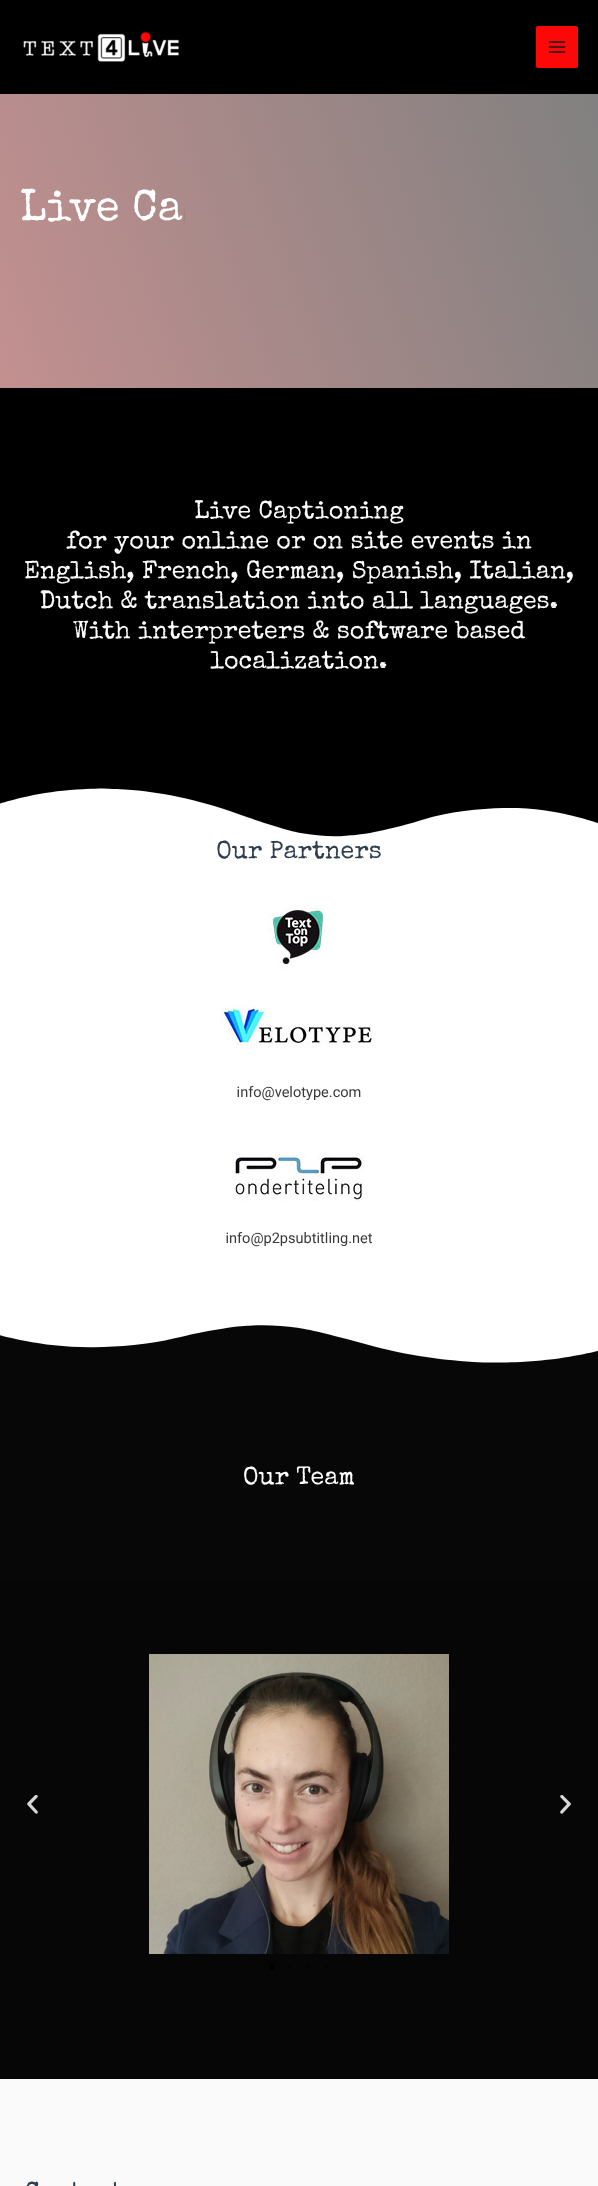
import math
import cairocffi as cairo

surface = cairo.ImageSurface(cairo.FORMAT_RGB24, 598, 2186)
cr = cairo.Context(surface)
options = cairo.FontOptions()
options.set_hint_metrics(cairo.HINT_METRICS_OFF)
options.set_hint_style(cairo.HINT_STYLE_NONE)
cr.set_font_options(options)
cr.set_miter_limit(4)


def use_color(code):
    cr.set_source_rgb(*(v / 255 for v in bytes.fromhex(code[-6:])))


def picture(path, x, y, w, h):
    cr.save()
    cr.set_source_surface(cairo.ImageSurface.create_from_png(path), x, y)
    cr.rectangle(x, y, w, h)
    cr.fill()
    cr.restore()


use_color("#ffffff")
cr.paint()
picture("img1.png", 0, 0, 598, 2186)
surface.write_to_png("result.png")
